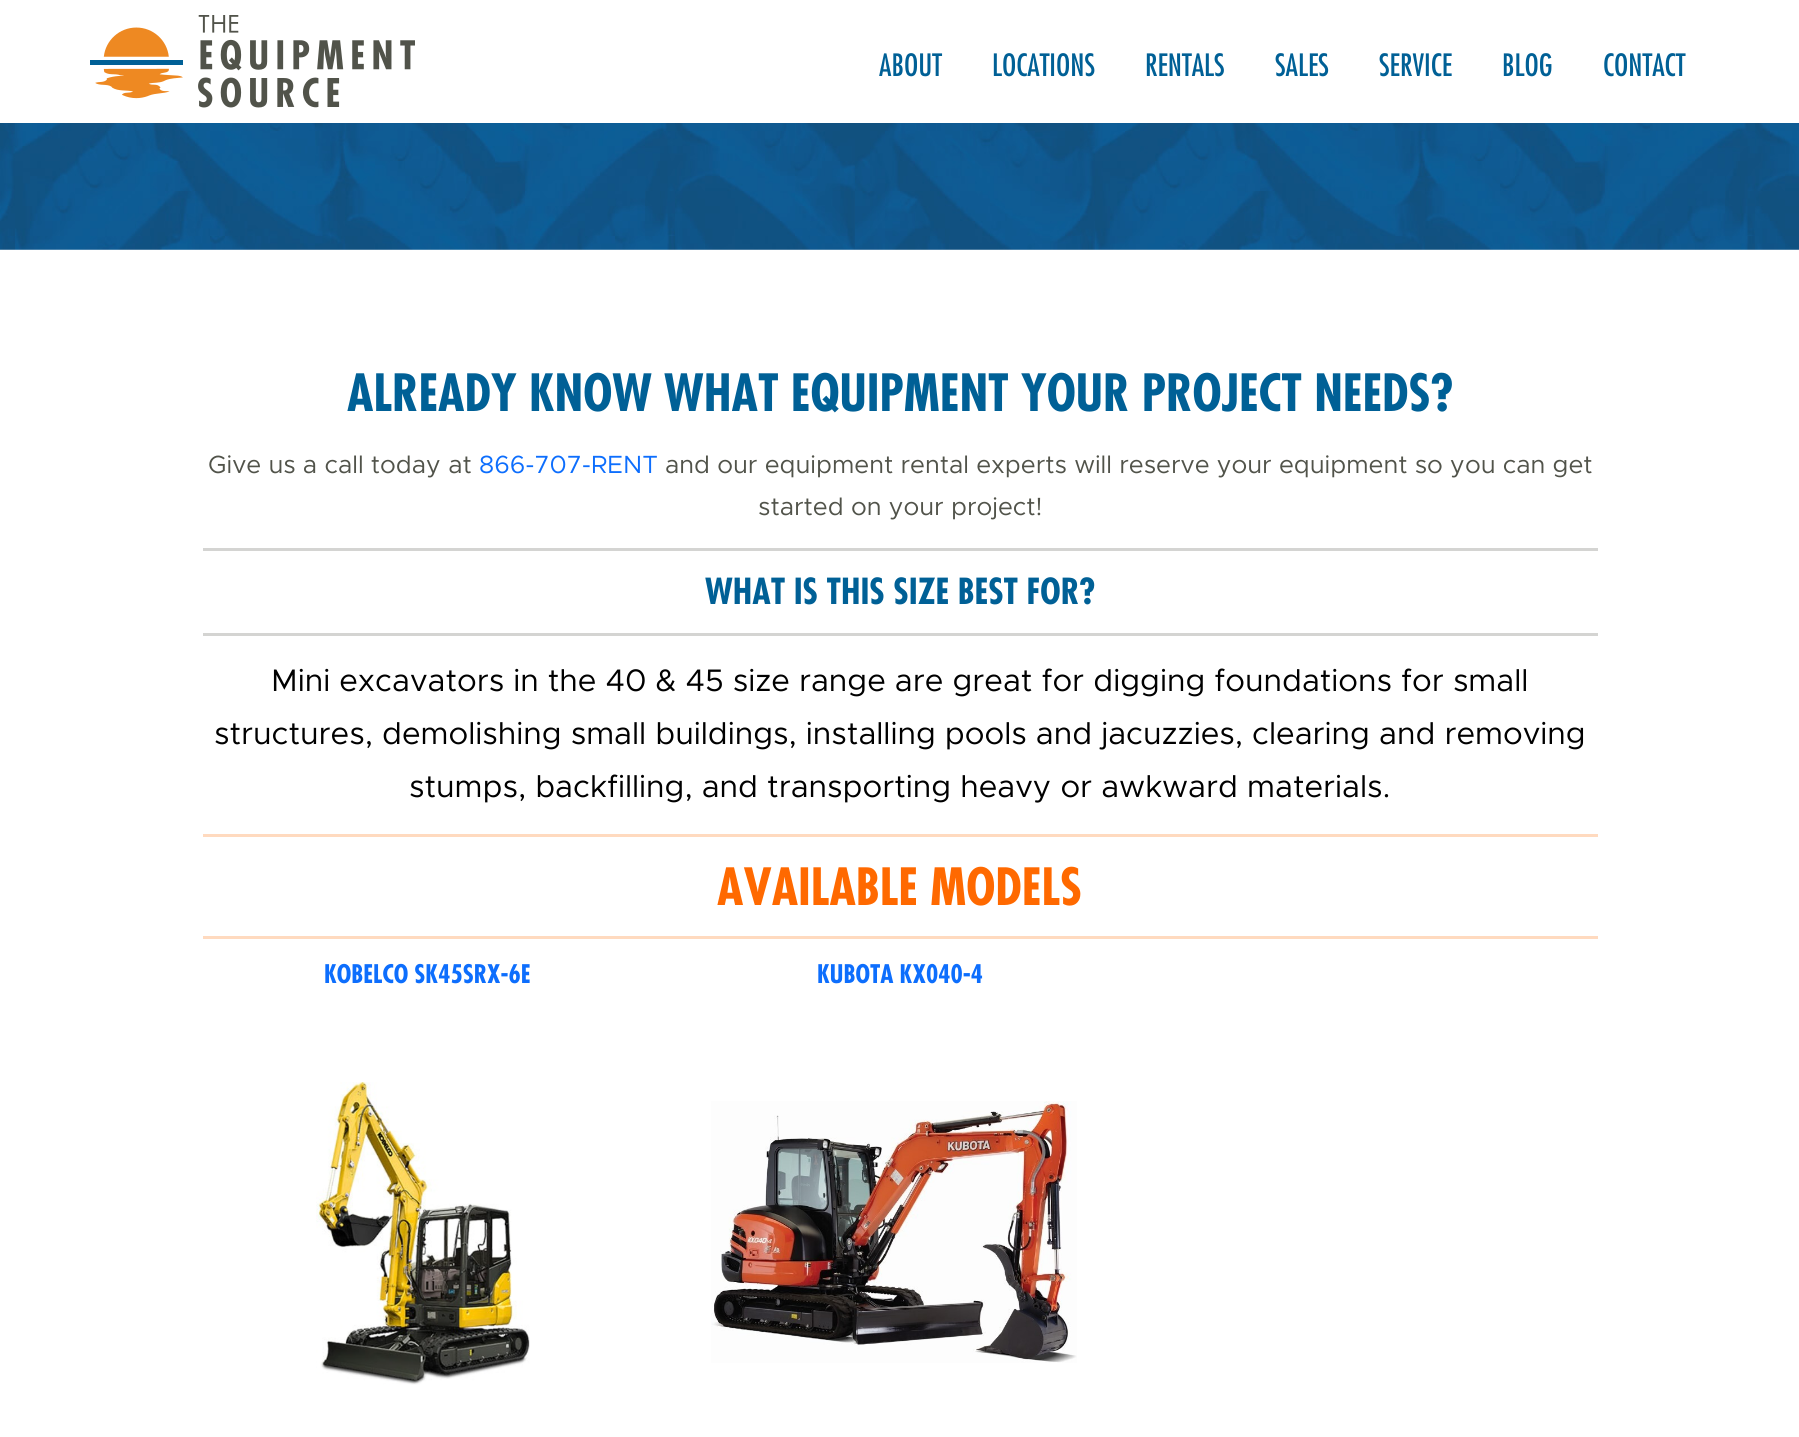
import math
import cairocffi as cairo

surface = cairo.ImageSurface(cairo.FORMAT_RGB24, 1799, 1437)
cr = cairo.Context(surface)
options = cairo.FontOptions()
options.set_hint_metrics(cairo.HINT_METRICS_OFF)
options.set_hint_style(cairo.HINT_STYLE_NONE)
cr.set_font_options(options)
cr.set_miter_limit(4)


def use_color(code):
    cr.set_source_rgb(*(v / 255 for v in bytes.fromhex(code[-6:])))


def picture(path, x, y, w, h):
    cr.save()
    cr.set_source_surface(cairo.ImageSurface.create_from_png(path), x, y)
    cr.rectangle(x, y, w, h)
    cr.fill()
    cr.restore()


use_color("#ffffff")
cr.paint()
picture("img1.png", 90, 15, 325, 93)
cr.select_font_face("Futura Medium")
cr.set_font_size(30)
use_color("#006096")
cr.move_to(879, 76)
cr.show_text("ABOUT")
cr.move_to(992, 76)
cr.show_text("LOCATIONS")
cr.move_to(1145, 76)
cr.show_text("RENTALS")
cr.move_to(1275, 76)
cr.show_text("SALES")
cr.move_to(1379, 76)
cr.show_text("SERVICE")
cr.move_to(1502, 76)
cr.show_text("BLOG")
cr.move_to(1603, 76)
cr.show_text("CONTACT")
picture("img2.png", 0, 123, 1799, 127)
cr.select_font_face("Futura", cairo.FONT_SLANT_NORMAL, cairo.FONT_WEIGHT_BOLD)
cr.set_font_size(50)
cr.move_to(347, 411)
cr.show_text("ALREADY KNOW WHAT EQUIPMENT YOUR PROJECT NEEDS?")
cr.select_font_face("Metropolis")
cr.set_font_size(25)
use_color("#51534a")
cr.move_to(208, 473)
cr.show_text("Give us a call today at")
use_color("#0d6efd")
cr.move_to(479, 473)
cr.show_text("866-707-RENT")
use_color("#51534a")
cr.move_to(665, 473)
cr.show_text("and our equipment rental experts will reserve your equipment so you can get")
cr.move_to(758, 515)
cr.show_text("started on your project!")
use_color("#d4d4d2")
cr.rectangle(203, 548, 1395, 3)
cr.fill()
cr.select_font_face("Futura", cairo.FONT_SLANT_NORMAL, cairo.FONT_WEIGHT_BOLD)
cr.set_font_size(35)
use_color("#006096")
cr.move_to(705, 604)
cr.show_text("WHAT IS THIS SIZE BEST FOR?")
use_color("#d4d4d2")
cr.rectangle(203, 633, 1395, 3)
cr.fill()
cr.select_font_face("Metropolis")
cr.set_font_size(31.25)
use_color("#000000")
cr.move_to(271, 691)
cr.show_text("Mini excavators in the 40 & 45 size range are great for digging foundations for small")
cr.move_to(214, 744)
cr.show_text("structures, demolishing small buildings, installing pools and jacuzzies, clearing and removing")
cr.move_to(409, 797)
cr.show_text("stumps, backfilling, and transporting heavy or awkward materials.")
use_color("#ffdabf")
cr.rectangle(203, 834, 1395, 3)
cr.fill()
cr.select_font_face("Futura", cairo.FONT_SLANT_NORMAL, cairo.FONT_WEIGHT_BOLD)
cr.set_font_size(50)
use_color("#ff6900")
cr.move_to(717, 905)
cr.show_text("AVAILABLE MODELS")
use_color("#ffdabf")
cr.rectangle(203, 936, 1395, 3)
cr.fill()
cr.set_font_size(25)
use_color("#0d6efd")
cr.move_to(324, 983)
cr.show_text("KOBELCO SK45SRX-6E")
picture("img3.png", 316, 1082, 214, 303)
cr.move_to(817, 983)
cr.show_text("KUBOTA KX040-4")
picture("img4.png", 711, 1101, 366, 262)
surface.write_to_png("result.png")
